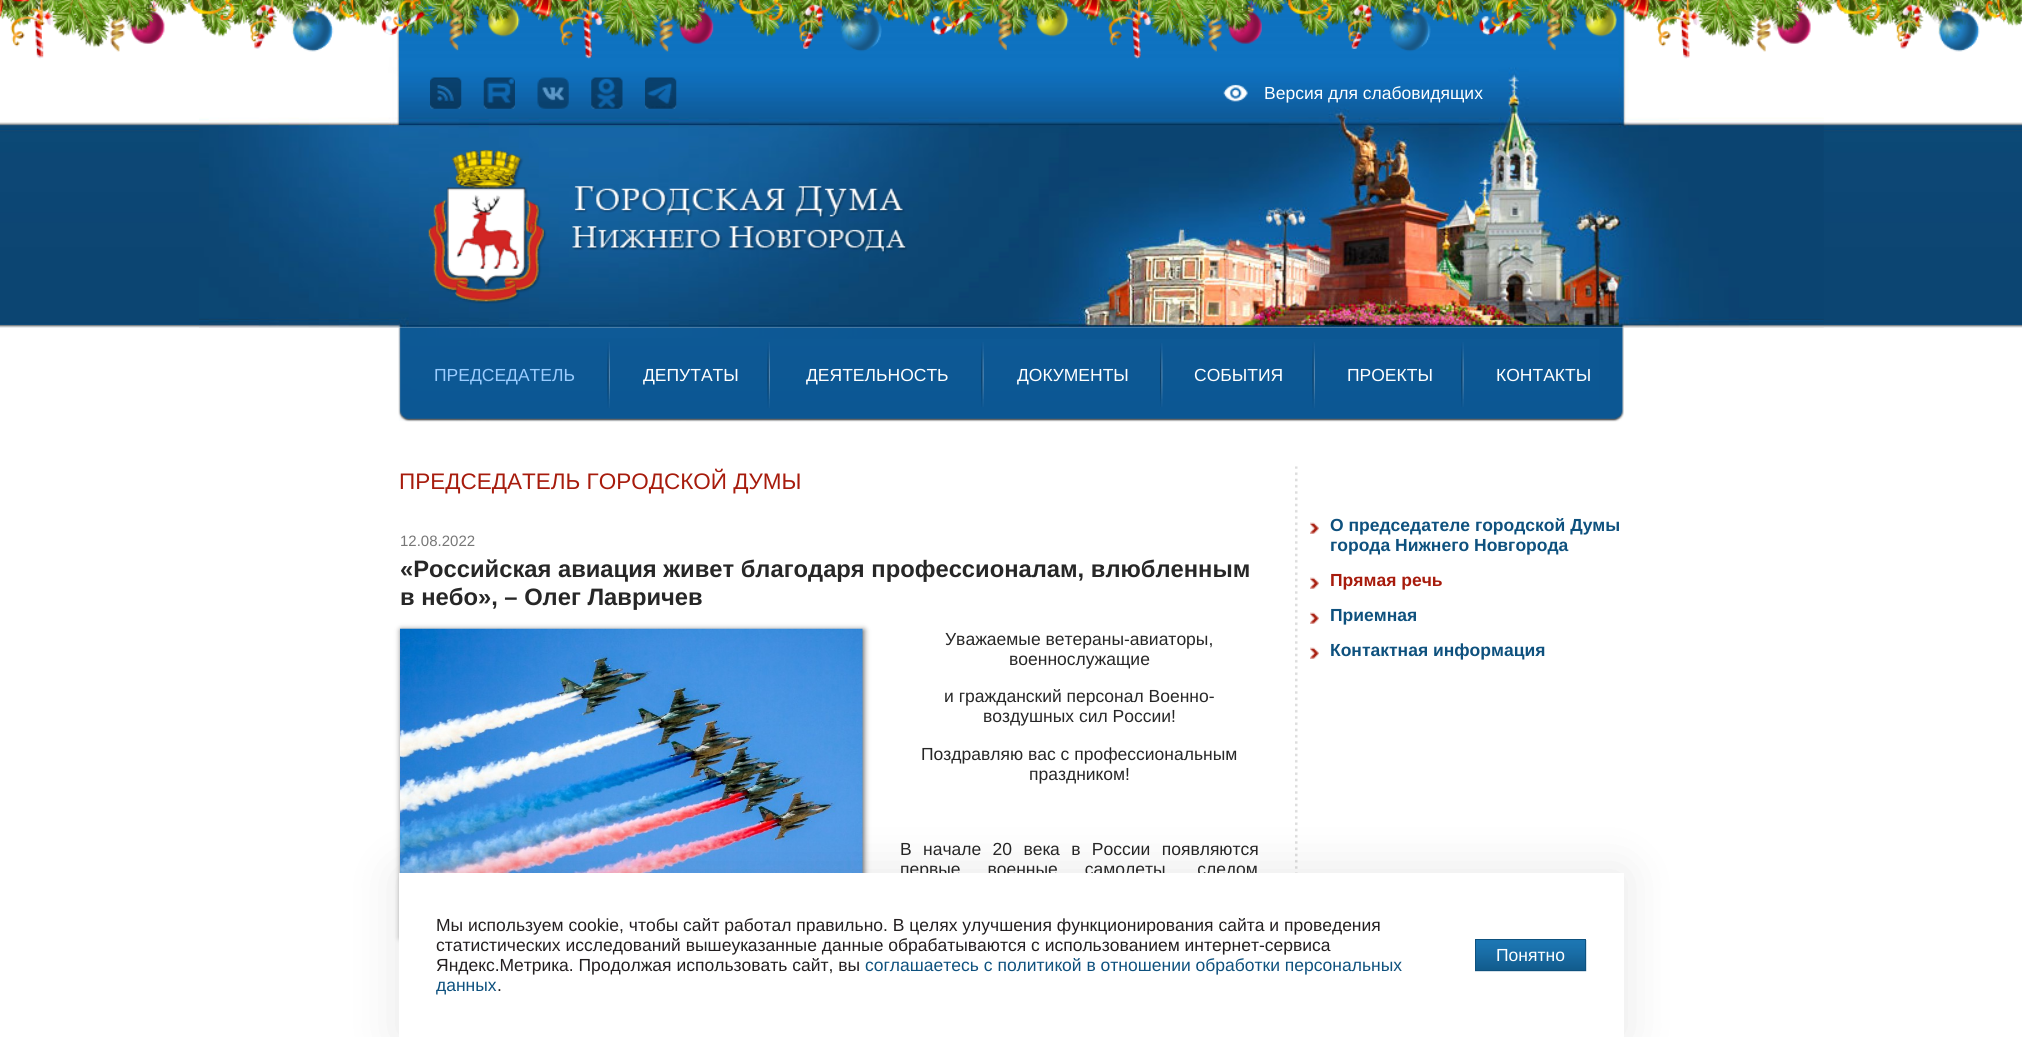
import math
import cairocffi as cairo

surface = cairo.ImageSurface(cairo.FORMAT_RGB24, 2022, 1037)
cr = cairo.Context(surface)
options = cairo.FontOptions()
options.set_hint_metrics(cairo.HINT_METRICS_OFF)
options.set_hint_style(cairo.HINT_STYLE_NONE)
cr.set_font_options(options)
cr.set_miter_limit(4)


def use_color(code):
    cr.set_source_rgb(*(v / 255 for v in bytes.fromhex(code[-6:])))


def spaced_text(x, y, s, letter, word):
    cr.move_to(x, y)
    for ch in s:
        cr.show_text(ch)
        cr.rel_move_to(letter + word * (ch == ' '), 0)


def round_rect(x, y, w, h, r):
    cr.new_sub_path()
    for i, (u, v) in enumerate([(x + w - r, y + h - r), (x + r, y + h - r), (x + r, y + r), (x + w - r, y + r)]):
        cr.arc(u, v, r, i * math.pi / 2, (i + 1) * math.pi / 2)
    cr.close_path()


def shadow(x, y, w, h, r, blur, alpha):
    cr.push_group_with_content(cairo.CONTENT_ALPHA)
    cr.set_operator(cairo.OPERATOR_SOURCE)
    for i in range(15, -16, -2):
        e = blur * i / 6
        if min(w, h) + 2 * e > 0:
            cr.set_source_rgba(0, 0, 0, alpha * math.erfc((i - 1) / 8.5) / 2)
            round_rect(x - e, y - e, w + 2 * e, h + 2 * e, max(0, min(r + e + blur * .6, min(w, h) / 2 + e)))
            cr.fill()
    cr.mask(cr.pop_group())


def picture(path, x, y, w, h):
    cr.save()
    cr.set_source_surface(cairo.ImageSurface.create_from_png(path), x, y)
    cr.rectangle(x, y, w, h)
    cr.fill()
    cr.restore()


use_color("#ffffff")
cr.paint()
picture("img1.png", 0, 122, 2022, 206)
picture("img3.png", 199, 0, 1625, 328)
picture("img2.png", 0, 0, 2022, 59)
picture("img4.png", 430, 77, 32, 32)
picture("img5.png", 483, 77, 32, 32)
picture("img6.png", 537, 77, 32, 32)
picture("img7.png", 591, 77, 32, 32)
picture("img8.png", 645, 77, 32, 32)
picture("img9.png", 1223, 84, 25, 18)
cr.select_font_face("Liberation Sans")
cr.set_font_size(17.5)
use_color("#ffffff")
cr.move_to(1264, 99)
cr.show_text("Версия для слабовидящих")
picture("img10.png", 428, 150, 479, 154)
picture("img11.png", 398, 327, 1226, 95)
picture("img12.png", 607, 342, 3, 66)
use_color("#99ccff")
cr.move_to(434, 381)
cr.show_text("ПРЕДСЕДАТЕЛЬ")
picture("img12.png", 767, 342, 3, 66)
use_color("#ffffff")
cr.move_to(643, 381)
cr.show_text("ДЕПУТАТЫ")
picture("img13.png", 981, 342, 3, 65)
cr.move_to(806, 381)
cr.show_text("ДЕЯТЕЛЬНОСТЬ")
picture("img14.png", 1160, 343, 3, 64)
cr.move_to(1017, 381)
cr.show_text("ДОКУМЕНТЫ")
picture("img12.png", 1312, 342, 3, 66)
cr.move_to(1194, 381)
cr.show_text("СОБЫТИЯ")
picture("img13.png", 1461, 342, 3, 65)
cr.move_to(1347, 381)
cr.show_text("ПРОЕКТЫ")
cr.move_to(1496, 381)
cr.show_text("КОНТАКТЫ")
cr.set_font_size(22.5)
use_color("#a71b0c")
cr.move_to(399, 489)
cr.show_text("ПРЕДСЕДАТЕЛЬ ГОРОДСКОЙ ДУМЫ")
cr.set_font_size(15)
use_color("#777777")
cr.move_to(400, 546)
cr.show_text("12.08.2022")
cr.select_font_face("Liberation Sans", cairo.FONT_SLANT_NORMAL, cairo.FONT_WEIGHT_BOLD)
cr.set_font_size(23.75)
use_color("#272727")
cr.move_to(400, 577)
cr.show_text("«Российская авиация живет благодаря профессионалам, влюбленным")
cr.move_to(400, 605)
cr.show_text("в небо», – Олег Лавричев")
use_color("#666666")
shadow(401, 630, 463, 308, 0, 3, 1)
picture("img15.png", 400, 628, 463, 245)
cr.select_font_face("Liberation Sans")
cr.set_font_size(17.5)
use_color("#272727")
cr.move_to(945, 645)
cr.show_text("Уважаемые ветераны-авиаторы,")
cr.move_to(1009, 665)
cr.show_text("военнослужащие")
cr.move_to(944, 702)
cr.show_text("и гражданский персонал Военно-")
cr.move_to(983, 722)
cr.show_text("воздушных сил России!")
cr.move_to(921, 760)
cr.show_text("Поздравляю вас с профессиональным")
cr.move_to(1029, 780)
cr.show_text("праздником!")
spaced_text(900, 855, "В начале 20 века в России появляются", 0, 6.5)
spaced_text(900, 875, "первые военные самолеты, следом", 0, 22)
picture("img16.png", 1295, 466, 3, 407)
picture("img17.png", 1310, 522, 9, 12)
cr.select_font_face("Liberation Sans", cairo.FONT_SLANT_NORMAL, cairo.FONT_WEIGHT_BOLD)
use_color("#0e517e")
cr.move_to(1330, 531)
cr.show_text("О председателе городской Думы")
cr.move_to(1330, 551)
cr.show_text("города Нижнего Новгорода")
picture("img17.png", 1310, 577, 9, 12)
use_color("#a71b0c")
cr.move_to(1330, 586)
cr.show_text("Прямая речь")
picture("img17.png", 1310, 612, 9, 12)
use_color("#0e517e")
cr.move_to(1330, 621)
cr.show_text("Приемная")
picture("img17.png", 1310, 647, 9, 12)
cr.move_to(1330, 656)
cr.show_text("Контактная информация")
use_color("#000000")
shadow(399, 873, 1225, 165, 0, 25, 0.1)
use_color("#ffffff")
cr.rectangle(399, 873, 1225, 164)
cr.fill()
cr.select_font_face("Liberation Sans")
use_color("#231f20")
cr.move_to(436, 931)
cr.show_text("Мы используем cookie, чтобы сайт работал правильно. В целях улучшения функционирования сайта и проведения")
cr.move_to(436, 951)
cr.show_text("статистических исследований вышеуказанные данные обрабатываются с использованием интернет-сервиса")
cr.move_to(436, 971)
cr.show_text("Яндекс.Метрика. Продолжая использовать сайт, вы")
use_color("#0e517e")
cr.move_to(865, 971)
cr.show_text("соглашаетесь с политикой в отношении обработки персональных")
cr.move_to(436, 991)
cr.show_text("данных")
use_color("#231f20")
cr.move_to(497, 991)
cr.show_text(".")
picture("img18.png", 1475, 940, 112, 32)
cr.rectangle(1475.5, 939.5, 110, 31)
use_color("#0e517e")
cr.set_line_width(1)
cr.stroke()
use_color("#ffffff")
cr.move_to(1496, 961)
cr.show_text("Понятно")
surface.write_to_png("result.png")
